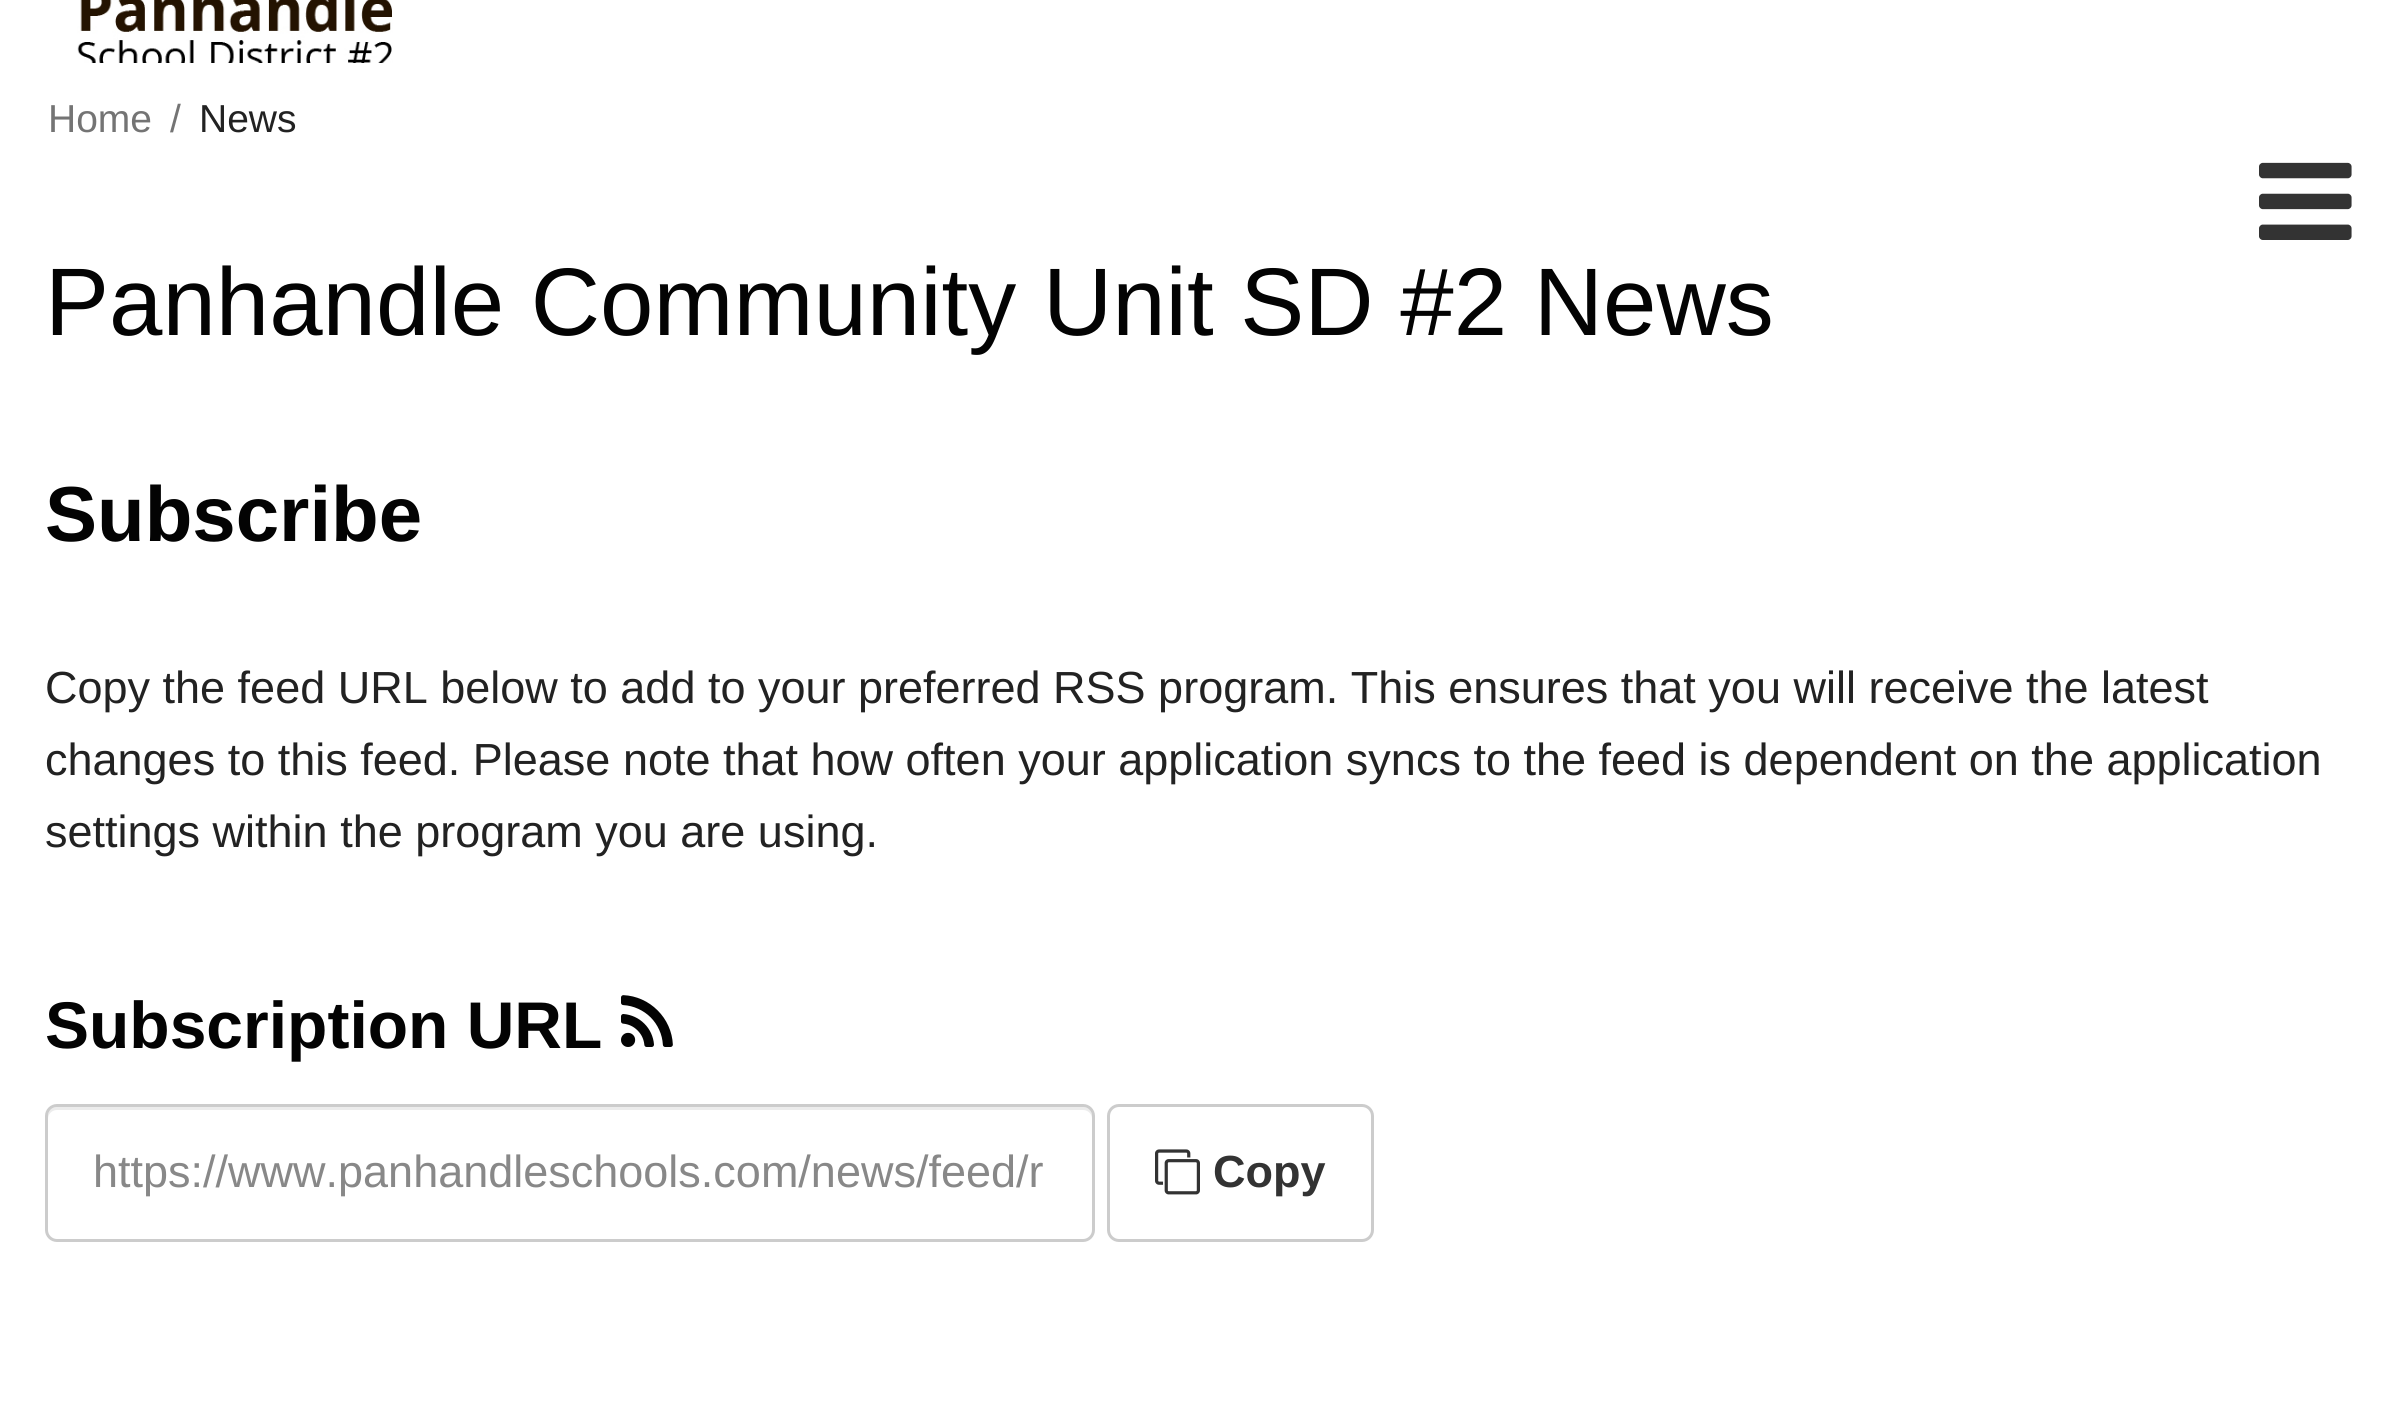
import math
import cairocffi as cairo

surface = cairo.ImageSurface(cairo.FORMAT_RGB24, 2392, 1404)
cr = cairo.Context(surface)
options = cairo.FontOptions()
options.set_hint_metrics(cairo.HINT_METRICS_OFF)
options.set_hint_style(cairo.HINT_STYLE_NONE)
cr.set_font_options(options)
cr.set_miter_limit(4)


def use_color(code):
    cr.set_source_rgb(*(v / 255 for v in bytes.fromhex(code[-6:])))


def round_rect(x, y, w, h, r):
    cr.new_sub_path()
    for i, (u, v) in enumerate([(x + w - r, y + h - r), (x + r, y + h - r), (x + r, y + r), (x + w - r, y + r)]):
        cr.arc(u, v, r, i * math.pi / 2, (i + 1) * math.pi / 2)
    cr.close_path()


def picture(path, x, y, w, h):
    cr.save()
    cr.set_source_surface(cairo.ImageSurface.create_from_png(path), x, y)
    cr.rectangle(x, y, w, h)
    cr.fill()
    cr.restore()


use_color("#ffffff")
cr.paint()
picture("img1.png", 77, 0, 316, 63)
picture("img2.png", 2259, 162, 93, 78)
cr.select_font_face("Liberation Sans")
cr.set_font_size(39)
use_color("#747474")
cr.move_to(48, 132)
cr.show_text("Home")
cr.move_to(170, 132)
cr.show_text("/")
use_color("#222222")
cr.move_to(199, 132)
cr.show_text("News")
cr.set_font_size(96)
use_color("#030303")
cr.move_to(45, 335)
cr.show_text("Panhandle Community Unit SD #2 News")
cr.select_font_face("Liberation Sans", cairo.FONT_SLANT_NORMAL, cairo.FONT_WEIGHT_BOLD)
cr.set_font_size(78)
cr.move_to(45, 541)
cr.show_text("Subscribe")
cr.select_font_face("Liberation Sans")
cr.set_font_size(45)
use_color("#222222")
cr.move_to(45, 703)
cr.show_text("Copy the feed URL below to add to your preferred RSS program. This ensures that you will receive the latest")
cr.move_to(45, 775)
cr.show_text("changes to this feed. Please note that how often your application syncs to the feed is dependent on the application")
cr.move_to(45, 847)
cr.show_text("settings within the program you are using.")
cr.select_font_face("Liberation Sans", cairo.FONT_SLANT_NORMAL, cairo.FONT_WEIGHT_BOLD)
cr.set_font_size(66)
use_color("#030303")
cr.move_to(45, 1048)
cr.show_text("Subscription URL")
picture("img3.png", 621, 995, 52, 52)
use_color("#ececec")
cr.new_path()
cr.move_to(57, 1110)
cr.line_to(1083, 1110)
cr.curve_to(1088, 1110, 1092, 1114, 1092, 1119)
cr.line_to(1092, 1116)
cr.curve_to(1092, 1111, 1088, 1107, 1083, 1107)
cr.line_to(57, 1107)
cr.curve_to(52, 1107, 48, 1111, 48, 1116)
cr.line_to(48, 1119)
cr.curve_to(48, 1114, 52, 1110, 57, 1110)
cr.close_path()
cr.fill()
round_rect(46.5, 1105.5, 1047, 135, 10.5)
use_color("#cccccc")
cr.set_line_width(3)
cr.stroke()
cr.select_font_face("Liberation Sans")
cr.set_font_size(45)
use_color("#888888")
cr.move_to(93, 1187)
cr.show_text("https://www.panhandleschools.com/news/feed/r")
round_rect(1108.5, 1105.5, 264, 135, 10.5)
use_color("#cccccc")
cr.stroke()
picture("img4.png", 1155, 1149, 45, 46)
cr.select_font_face("Liberation Sans", cairo.FONT_SLANT_NORMAL, cairo.FONT_WEIGHT_BOLD)
use_color("#333333")
cr.move_to(1213, 1187)
cr.show_text("Copy")
surface.write_to_png("result.png")
